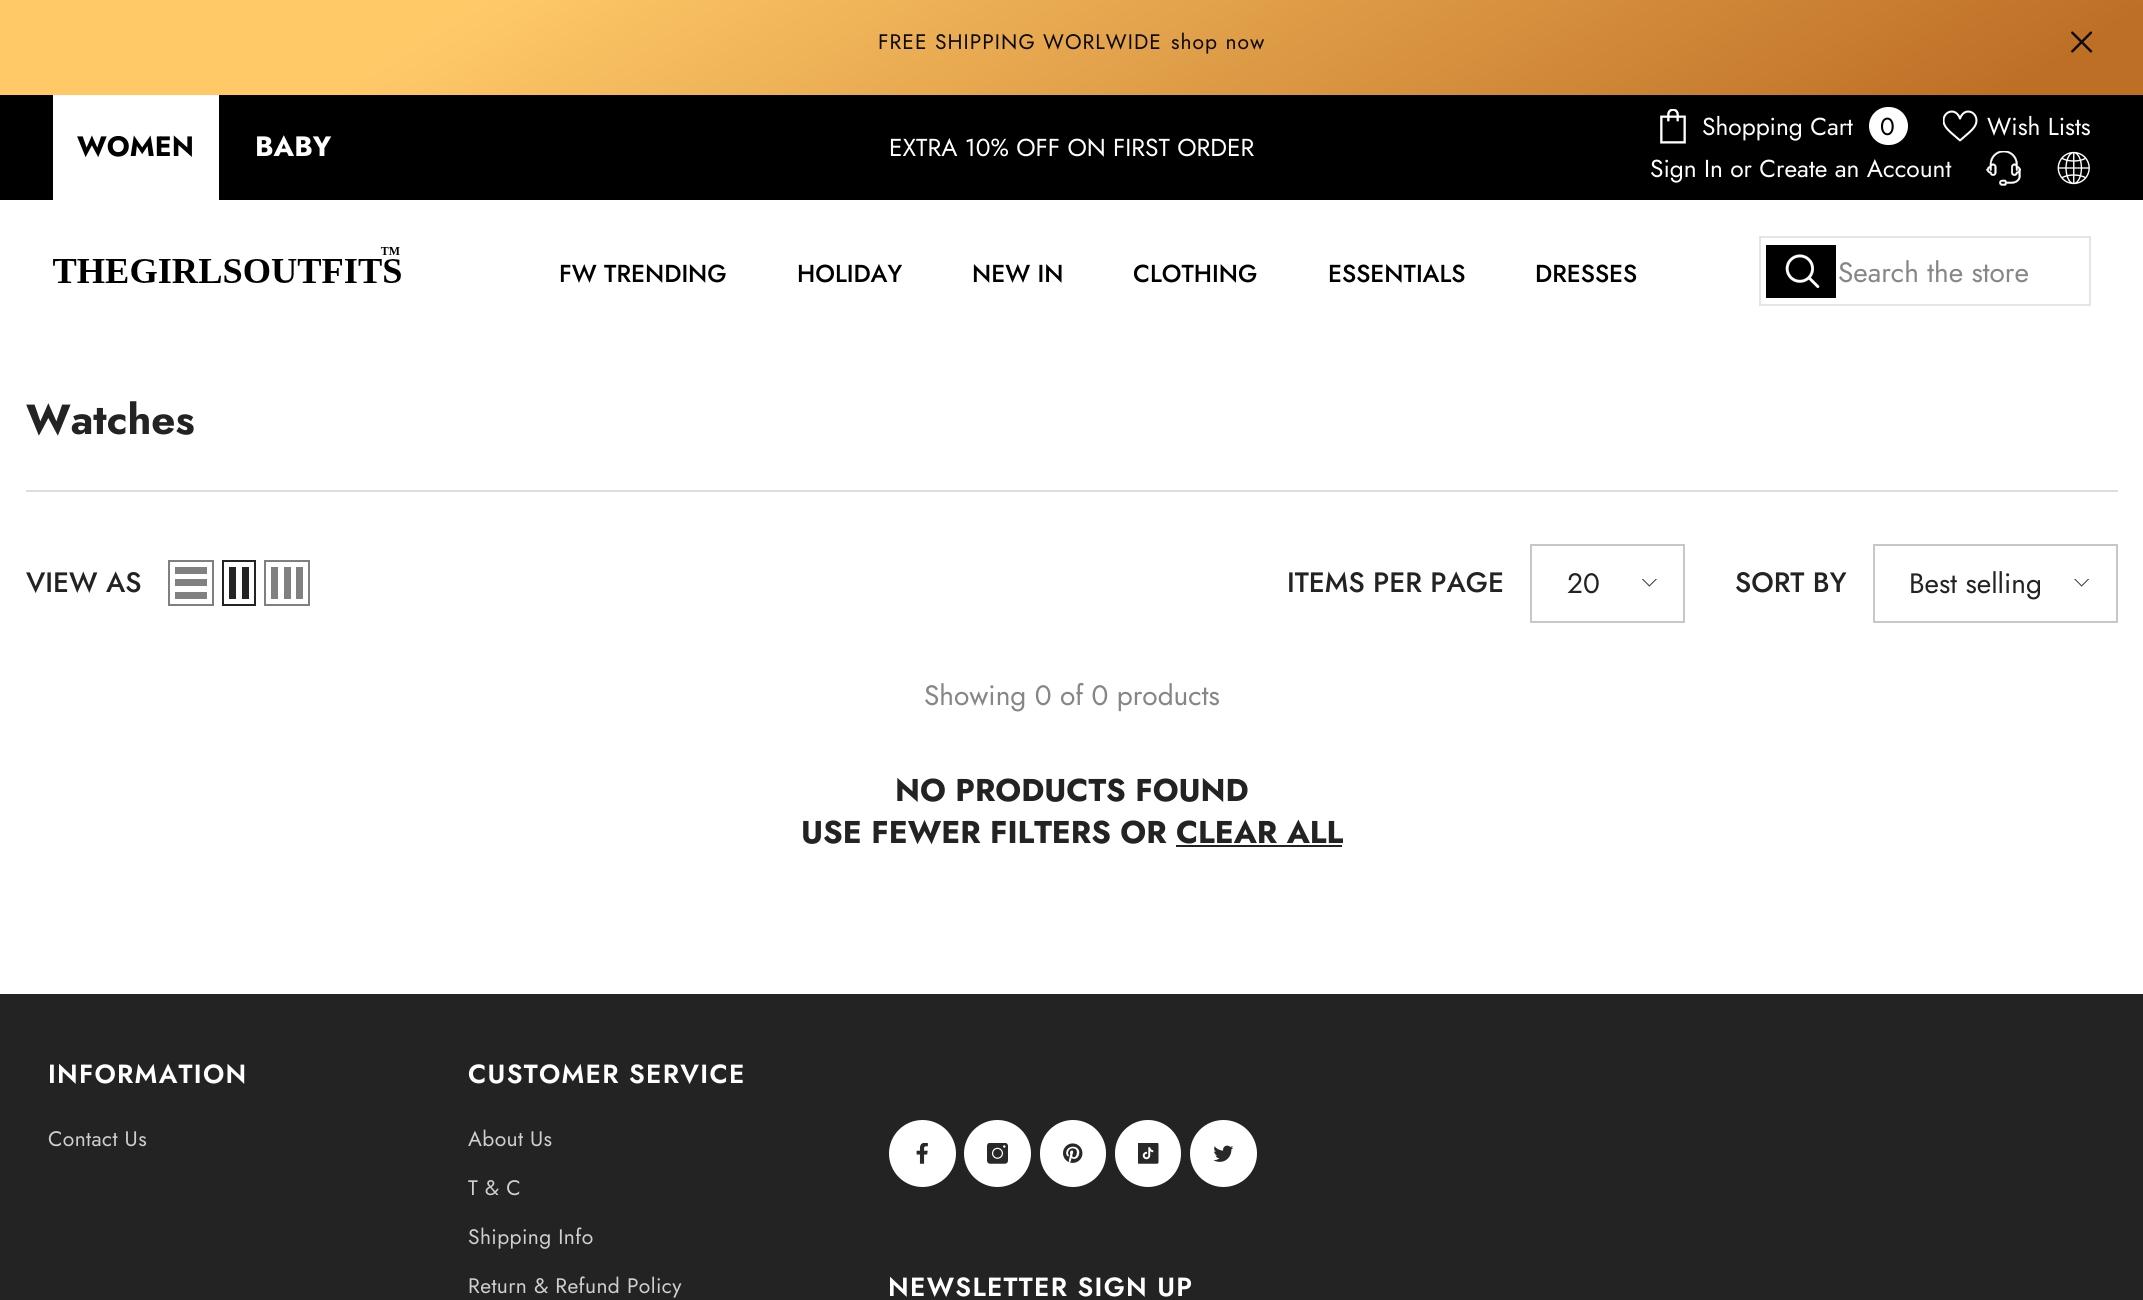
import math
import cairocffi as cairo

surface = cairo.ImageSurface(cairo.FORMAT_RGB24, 2143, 1300)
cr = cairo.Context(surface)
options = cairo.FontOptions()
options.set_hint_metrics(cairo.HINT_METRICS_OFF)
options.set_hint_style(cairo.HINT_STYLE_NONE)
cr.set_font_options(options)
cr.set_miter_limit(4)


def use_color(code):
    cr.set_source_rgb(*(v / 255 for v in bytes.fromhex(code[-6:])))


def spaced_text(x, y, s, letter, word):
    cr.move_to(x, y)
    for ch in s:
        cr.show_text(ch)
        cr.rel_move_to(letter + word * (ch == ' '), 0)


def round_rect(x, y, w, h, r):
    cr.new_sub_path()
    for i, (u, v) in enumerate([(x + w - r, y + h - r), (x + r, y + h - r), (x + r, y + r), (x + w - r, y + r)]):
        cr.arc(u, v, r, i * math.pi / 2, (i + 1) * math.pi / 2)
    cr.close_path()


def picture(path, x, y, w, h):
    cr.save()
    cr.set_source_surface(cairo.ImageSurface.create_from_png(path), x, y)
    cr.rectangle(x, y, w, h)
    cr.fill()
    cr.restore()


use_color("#ffffff")
cr.paint()
gradient = cairo.LinearGradient(750, -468, 1394, 563)
gradient.add_color_stop_rgba(0.21, 1, 0.788, 0.408, 1)
gradient.add_color_stop_rgba(0.94, 0.745, 0.435, 0.149, 1)
cr.set_source(gradient)
cr.rectangle(0, 0, 2143, 95)
cr.fill()
cr.select_font_face("Jost")
cr.set_font_size(21)
use_color("#0a0a0a")
spaced_text(878, 49, "FREE SHIPPING WORLWIDE", 1.05, 0)
spaced_text(1171, 49, "shop now", 1.05, 0)
picture("img1.png", 2071, 31, 22, 22)
use_color("#000000")
cr.rectangle(0, 95, 2143, 105)
cr.fill()
use_color("#ffffff")
cr.rectangle(53, 95, 166, 105)
cr.fill()
cr.select_font_face("Jost", cairo.FONT_SLANT_NORMAL, cairo.FONT_WEIGHT_BOLD)
cr.set_font_size(28)
use_color("#000000")
cr.move_to(77, 156)
cr.show_text("WOMEN")
use_color("#ffffff")
cr.move_to(255, 156)
cr.show_text("BABY")
cr.select_font_face("Jost")
cr.set_font_size(24.5)
cr.move_to(889, 156)
cr.show_text("EXTRA 10% OFF ON FIRST ORDER")
picture("img2.png", 1660, 109, 26, 35)
cr.move_to(1702, 135)
cr.show_text("Shopping Cart")
round_rect(1869, 107, 39, 38, 19)
cr.fill()
use_color("#000000")
cr.move_to(1880, 135)
cr.show_text("0")
picture("img3.png", 1943, 110, 35, 32)
use_color("#ffffff")
cr.move_to(1987, 135)
cr.show_text("Wish Lists")
cr.move_to(1650, 177)
cr.show_text("Sign In or Create an Account")
picture("img4.png", 1986, 151, 35, 35)
picture("img5.png", 2057, 151, 33, 34)
picture("img6.png", 53, 247, 348, 36)
cr.select_font_face("Jost Medium")
use_color("#000000")
cr.move_to(559, 282)
cr.show_text("FW TRENDING")
cr.move_to(797, 282)
cr.show_text("HOLIDAY")
cr.move_to(972, 282)
cr.show_text("NEW IN")
cr.move_to(1133, 282)
cr.show_text("CLOTHING")
cr.move_to(1328, 282)
cr.show_text("ESSENTIALS")
cr.move_to(1535, 282)
cr.show_text("DRESSES")
cr.rectangle(1760, 237, 330, 68)
use_color("#e5e5e5")
cr.stroke()
use_color("#000000")
cr.rectangle(1766, 245, 70, 53)
cr.fill()
picture("img7.png", 1785, 254, 35, 34)
cr.select_font_face("Jost")
cr.set_font_size(28)
use_color("#868686")
cr.move_to(1838, 282)
cr.show_text("Search the store")
cr.select_font_face("Jost", cairo.FONT_SLANT_NORMAL, cairo.FONT_WEIGHT_BOLD)
cr.set_font_size(42)
use_color("#232323")
cr.move_to(26, 434)
cr.show_text("Watches")
use_color("#dedede")
cr.rectangle(26, 490, 2092, 2)
cr.fill()
cr.select_font_face("Jost Medium")
cr.set_font_size(28)
use_color("#232323")
cr.move_to(26, 592)
cr.show_text("VIEW AS")
cr.rectangle(169, 561, 44, 44)
use_color("#808080")
cr.stroke()
cr.rectangle(175, 592, 32, 7)
cr.fill()
cr.rectangle(175, 579, 32, 7)
cr.fill()
cr.rectangle(175, 567, 32, 7)
cr.fill()
cr.rectangle(223, 561, 32, 44)
use_color("#232323")
cr.stroke()
cr.rectangle(242, 567, 7, 32)
cr.fill()
cr.rectangle(229, 567, 7, 32)
cr.fill()
cr.rectangle(265, 561, 44, 44)
use_color("#808080")
cr.stroke()
cr.rectangle(296, 567, 7, 32)
cr.fill()
cr.rectangle(284, 567, 7, 32)
cr.fill()
cr.rectangle(271, 567, 7, 32)
cr.fill()
use_color("#232323")
cr.move_to(1287, 592)
cr.show_text("ITEMS PER PAGE")
cr.rectangle(1531, 545, 153, 77)
use_color("#c7c7c7")
cr.stroke()
cr.select_font_face("Jost")
use_color("#232323")
cr.move_to(1567, 593)
cr.show_text("20")
picture("img8.png", 1642, 579, 15, 8)
cr.select_font_face("Jost Medium")
cr.move_to(1735, 592)
cr.show_text("SORT BY")
cr.rectangle(1874, 545, 243, 77)
use_color("#c7c7c7")
cr.stroke()
cr.select_font_face("Jost")
use_color("#232323")
cr.move_to(1909, 593)
cr.show_text("Best selling")
picture("img9.png", 2074, 579, 16, 8)
use_color("#868686")
cr.move_to(924, 705)
cr.show_text("Showing 0 of 0 products")
cr.select_font_face("Jost", cairo.FONT_SLANT_NORMAL, cairo.FONT_WEIGHT_BOLD)
cr.set_font_size(31.5)
use_color("#232323")
cr.move_to(895, 801)
cr.show_text("NO PRODUCTS FOUND")
cr.move_to(801, 843)
cr.show_text("USE FEWER FILTERS OR CLEAR ALL")
cr.rectangle(1176, 845, 166, 2)
cr.fill()
cr.rectangle(0, 994, 2143, 306)
cr.fill()
cr.select_font_face("Jost SemiBold")
cr.set_font_size(26.25)
use_color("#ffffff")
spaced_text(48, 1083, "INFORMATION", 1.3, 0)
cr.select_font_face("Jost")
cr.set_font_size(21)
use_color("#cfcfcf")
spaced_text(48, 1146, "Contact Us", 0.4, 0)
cr.select_font_face("Jost SemiBold")
cr.set_font_size(26.25)
use_color("#ffffff")
spaced_text(468, 1083, "CUSTOMER SERVICE", 1.3, 0)
cr.select_font_face("Jost")
cr.set_font_size(21)
use_color("#cfcfcf")
spaced_text(468, 1146, "About Us", 0.4, 0)
spaced_text(468, 1195, "T & C", 0.4, 0)
spaced_text(468, 1244, "Shipping Info", 0.4, 0)
spaced_text(468, 1293, "Return & Refund Policy", 0.4, 0)
use_color("#ffffff")
cr.new_path()
cr.arc(922.5, 1153.5, 32.5, 0, 2 * math.pi)
cr.fill_preserve()
cr.stroke()
picture("img10.png", 916, 1143, 12, 21)
cr.arc(997.5, 1153.5, 32.5, 0, 2 * math.pi)
cr.fill_preserve()
cr.stroke()
picture("img11.png", 987, 1143, 21, 21)
round_rect(1041, 1121, 64, 65, 32)
cr.fill_preserve()
cr.stroke()
picture("img12.png", 1063, 1143, 20, 20)
round_rect(1116, 1121, 64, 65, 32)
cr.fill_preserve()
cr.stroke()
picture("img13.png", 1138, 1143, 21, 21)
cr.arc(1223.5, 1153.5, 32.5, 0, 2 * math.pi)
cr.fill_preserve()
cr.stroke()
picture("img14.png", 1213, 1145, 21, 17)
cr.select_font_face("Jost SemiBold")
cr.set_font_size(26.25)
spaced_text(888, 1296, "NEWSLETTER SIGN UP", 1.3, 0)
surface.write_to_png("result.png")
